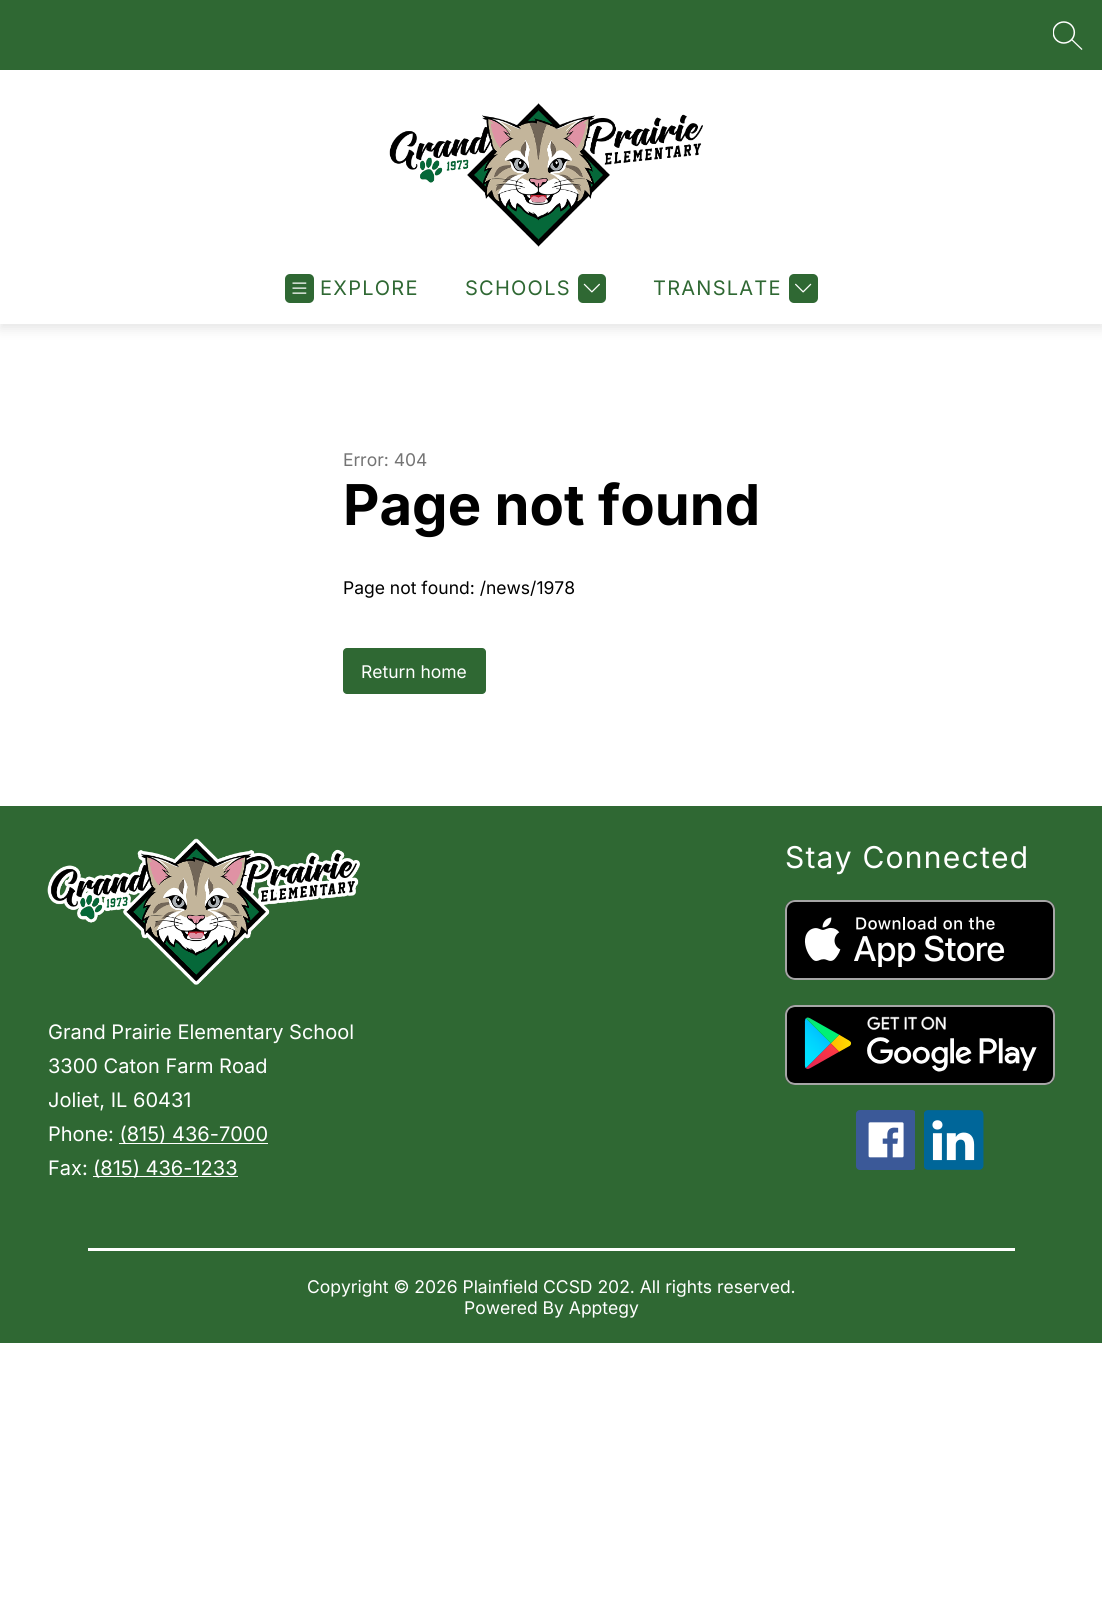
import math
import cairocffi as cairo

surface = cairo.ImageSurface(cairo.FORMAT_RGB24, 1102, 1619)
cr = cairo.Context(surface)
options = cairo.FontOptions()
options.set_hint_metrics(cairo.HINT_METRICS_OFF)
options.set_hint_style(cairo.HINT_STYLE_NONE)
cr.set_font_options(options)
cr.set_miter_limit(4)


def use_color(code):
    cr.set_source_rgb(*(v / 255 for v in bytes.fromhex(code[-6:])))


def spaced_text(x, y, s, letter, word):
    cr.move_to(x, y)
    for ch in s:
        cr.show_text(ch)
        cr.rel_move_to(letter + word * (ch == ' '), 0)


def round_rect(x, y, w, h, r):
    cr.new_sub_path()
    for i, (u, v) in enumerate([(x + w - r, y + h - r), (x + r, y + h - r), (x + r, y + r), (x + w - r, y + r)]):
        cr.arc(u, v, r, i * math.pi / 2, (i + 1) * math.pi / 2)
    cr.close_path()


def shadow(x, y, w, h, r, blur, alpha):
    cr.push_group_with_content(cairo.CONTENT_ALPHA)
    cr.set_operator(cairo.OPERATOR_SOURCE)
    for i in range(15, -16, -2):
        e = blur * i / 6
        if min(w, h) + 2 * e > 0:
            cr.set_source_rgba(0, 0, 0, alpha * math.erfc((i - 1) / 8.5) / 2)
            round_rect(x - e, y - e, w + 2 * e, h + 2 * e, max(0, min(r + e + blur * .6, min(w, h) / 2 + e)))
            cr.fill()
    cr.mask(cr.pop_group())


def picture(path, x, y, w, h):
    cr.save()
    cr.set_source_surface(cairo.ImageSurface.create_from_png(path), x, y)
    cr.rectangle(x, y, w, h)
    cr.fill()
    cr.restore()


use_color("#ffffff")
cr.paint()
use_color("#000000")
shadow(0, 5, 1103, 324, 0, 6, 0.1)
use_color("#ffffff")
cr.rectangle(0, 70, 1102, 254)
cr.fill()
use_color("#2f6833")
cr.rectangle(0, 0, 1102, 70)
cr.fill()
picture("img1.png", 1053, 21, 30, 29)
picture("img2.png", 389, 103, 314, 144)
picture("img3.png", 285, 274, 29, 29)
cr.select_font_face("Inter")
cr.set_font_size(20)
spaced_text(320, 295, "EXPLORE", 1.25, 0)
spaced_text(465, 295, "SCHOOLS", 1.25, 0)
picture("img4.png", 578, 274, 28, 29)
spaced_text(653, 295, "TRANSLATE", 1.25, 0)
picture("img5.png", 789, 274, 29, 29)
cr.set_font_size(17.5)
use_color("#747474")
cr.move_to(343, 466)
cr.show_text("Error: 404")
cr.select_font_face("Inter", cairo.FONT_SLANT_NORMAL, cairo.FONT_WEIGHT_BOLD)
cr.set_font_size(56.25)
use_color("#000000")
cr.move_to(343, 525)
cr.show_text("Page not found")
cr.select_font_face("Inter")
cr.set_font_size(17.5)
cr.move_to(343, 594)
cr.show_text("Page not found: /news/1978")
use_color("#2f6833")
round_rect(343, 648, 143, 46, 4)
cr.fill()
use_color("#ffffff")
cr.move_to(361, 678)
cr.show_text("Return home")
use_color("#2f6833")
cr.rectangle(0, 806, 1102, 537)
cr.fill()
cr.set_font_size(30)
use_color("#ffffff")
spaced_text(785, 868, "Stay Connected", 1.25, 0)
picture("img6.png", 785, 900, 270, 80)
picture("img7.png", 785, 1005, 270, 80)
picture("img8.png", 856, 1110, 59, 60)
picture("img9.png", 924, 1110, 60, 60)
picture("img10.png", 47, 838, 313, 147)
cr.set_font_size(20)
cr.move_to(48, 1039)
cr.show_text("Grand Prairie Elementary School")
cr.move_to(48, 1073)
cr.show_text("3300 Caton Farm Road")
cr.move_to(48, 1107)
cr.show_text("Joliet, IL 60431")
cr.move_to(48, 1141)
cr.show_text("Phone: (815) 436-7000")
cr.rectangle(119, 1143, 149, 1)
cr.fill()
cr.move_to(48, 1175)
cr.show_text("Fax:")
cr.rectangle(93, 1176, 145, 1)
cr.fill()
cr.move_to(93, 1175)
cr.show_text("(815) 436-1233")
cr.rectangle(88, 1248, 927, 3)
cr.fill()
cr.set_font_size(17.5)
cr.move_to(307, 1293)
cr.show_text("Copyright © 2026 Plainfield CCSD 202. All rights reserved.")
cr.move_to(464, 1314)
cr.show_text("Powered By Apptegy")
surface.write_to_png("result.png")
